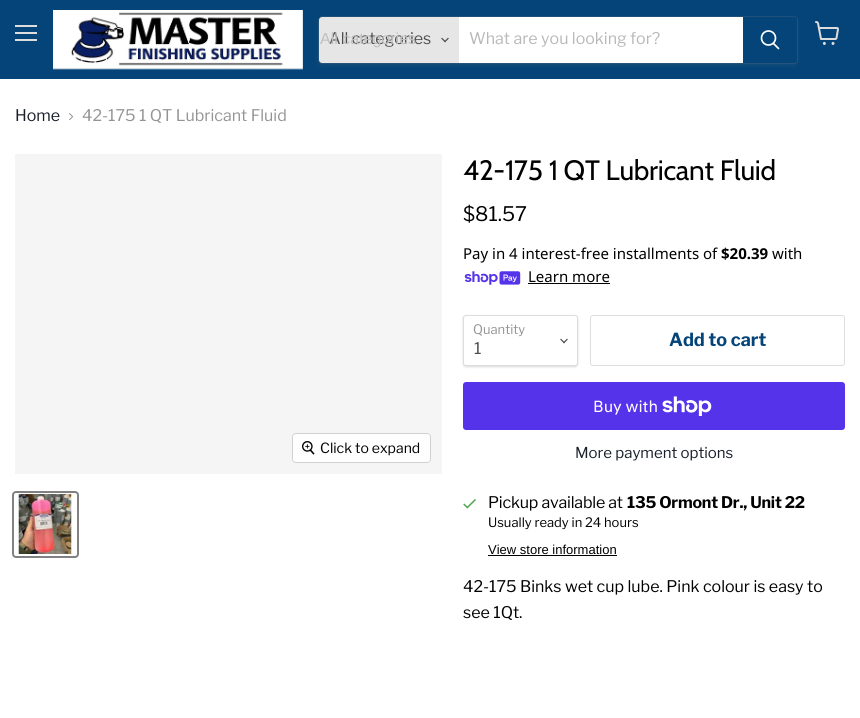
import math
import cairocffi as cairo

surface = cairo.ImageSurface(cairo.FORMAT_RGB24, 860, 718)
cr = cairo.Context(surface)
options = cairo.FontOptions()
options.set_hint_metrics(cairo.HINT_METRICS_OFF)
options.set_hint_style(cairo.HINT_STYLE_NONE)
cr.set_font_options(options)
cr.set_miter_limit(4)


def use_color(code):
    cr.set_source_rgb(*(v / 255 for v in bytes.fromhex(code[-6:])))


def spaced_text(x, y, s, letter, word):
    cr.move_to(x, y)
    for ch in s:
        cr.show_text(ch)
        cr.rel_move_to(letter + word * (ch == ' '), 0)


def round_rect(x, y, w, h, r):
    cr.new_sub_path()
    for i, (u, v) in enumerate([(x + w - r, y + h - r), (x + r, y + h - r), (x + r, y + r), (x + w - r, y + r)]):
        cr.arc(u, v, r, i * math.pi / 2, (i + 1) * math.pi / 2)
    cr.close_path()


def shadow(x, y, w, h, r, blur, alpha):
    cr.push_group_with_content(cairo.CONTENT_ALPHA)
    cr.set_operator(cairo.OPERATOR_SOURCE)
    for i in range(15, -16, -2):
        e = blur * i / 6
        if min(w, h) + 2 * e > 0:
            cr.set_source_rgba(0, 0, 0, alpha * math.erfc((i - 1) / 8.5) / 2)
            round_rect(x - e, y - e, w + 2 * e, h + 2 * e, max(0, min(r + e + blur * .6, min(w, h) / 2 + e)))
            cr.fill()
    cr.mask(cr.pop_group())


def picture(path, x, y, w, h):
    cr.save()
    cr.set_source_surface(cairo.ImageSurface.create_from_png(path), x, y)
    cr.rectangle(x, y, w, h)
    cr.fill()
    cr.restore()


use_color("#ffffff")
cr.paint()
use_color("#044478")
cr.rectangle(0, 0, 860, 79)
cr.fill()
use_color("#dddddd")
cr.rectangle(15, 25, 22, 2)
cr.fill()
cr.rectangle(15, 32, 22, 2)
cr.fill()
cr.rectangle(15, 39, 22, 2)
cr.fill()
picture("img1.png", 53, 10, 250, 60)
use_color("#808080")
shadow(318, 18, 480, 48, 4, 1.5, 0.11)
round_rect(318.5, 16.5, 479, 47, 3.5)
cr.set_source_rgba(0.502, 0.502, 0.502, 0.2)
cr.set_line_width(1)
cr.stroke()
use_color("#e6e6e6")
cr.new_path()
cr.move_to(322, 17)
cr.line_to(459, 17)
cr.line_to(459, 63)
cr.line_to(322, 63)
cr.curve_to(320.5, 63, 319, 61.5, 319, 60)
cr.line_to(319, 20)
cr.curve_to(319, 18.5, 320.5, 17, 322, 17)
cr.close_path()
cr.fill()
cr.select_font_face("Libre Franklin")
cr.set_font_size(16)
use_color("#4d4d4d")
cr.move_to(329, 44)
cr.show_text("All categories")
cr.select_font_face("Liberation Sans")
use_color("#bfbfbf")
cr.move_to(320, 44)
cr.show_text("All categories")
picture("img2.png", 441, 37, 8, 6)
use_color("#ffffff")
cr.rectangle(459, 17, 284, 46)
cr.fill()
cr.select_font_face("Libre Franklin")
use_color("#b8b8b8")
cr.move_to(469, 44)
cr.show_text("What are you looking for?")
use_color("#044478")
cr.new_path()
cr.move_to(743.5, 17.5)
cr.line_to(794, 17.5)
cr.curve_to(795.5, 17.5, 796.5, 18.5, 796.5, 20)
cr.line_to(796.5, 60)
cr.curve_to(796.5, 61.5, 795.5, 62.5, 794, 62.5)
cr.line_to(743.5, 62.5)
cr.close_path()
cr.fill_preserve()
cr.stroke()
cr.new_path()
cr.move_to(778.5, 48.5)
cr.line_to(773.5, 43.5)
use_color("#ffffff")
cr.set_line_width(1.7)
cr.set_line_cap(cairo.LINE_CAP_ROUND)
cr.stroke()
cr.arc(768.5, 38, 7, 0, 2 * math.pi)
cr.set_line_cap(cairo.LINE_CAP_BUTT)
cr.stroke()
picture("img3.png", 815, 21, 24, 24)
use_color("#171f2b")
cr.move_to(15, 121)
cr.show_text("Home")
picture("img4.png", 69, 113, 5, 8)
use_color("#949494")
cr.move_to(82, 121)
cr.show_text("42-175 1 QT Lubricant Fluid")
use_color("#f5f5f5")
cr.rectangle(15, 154, 427, 320)
cr.fill()
round_rect(292.5, 433.5, 138, 29, 3.5)
use_color("#d0d0d0")
cr.set_line_width(1)
cr.stroke()
cr.set_source_rgba(1, 1, 1, 0.9)
round_rect(293, 434, 137, 28, 3)
cr.fill()
picture("img5.png", 302, 441, 13, 14)
cr.set_font_size(14)
use_color("#000000")
cr.move_to(320, 453)
cr.show_text("Click to expand")
round_rect(13, 492, 65, 65, 3)
use_color("#818181")
cr.set_line_width(2)
cr.stroke()
picture("img6.png", 15, 494, 58, 60)
cr.select_font_face("Cabin")
cr.set_font_size(28)
use_color("#000000")
spaced_text(463, 180, "42-175 1 QT Lubricant Fluid", -0.25, 0)
cr.select_font_face("Libre Franklin")
cr.set_font_size(20)
cr.move_to(463, 221)
cr.show_text("$81.57")
cr.select_font_face("Noto Sans")
cr.set_font_size(15)
cr.move_to(463, 259)
cr.show_text("Pay in 4 interest-free installments of")
cr.select_font_face("Noto Sans", cairo.FONT_SLANT_NORMAL, cairo.FONT_WEIGHT_BOLD)
cr.move_to(721, 259)
cr.show_text("$20.39")
cr.select_font_face("Noto Sans")
cr.move_to(772, 259)
cr.show_text("with")
picture("img7.png", 464, 271, 57, 14)
cr.move_to(528, 282)
cr.show_text("Learn more")
cr.rectangle(528, 283, 82, 1)
cr.fill()
use_color("#000000")
shadow(463, 316, 115, 51, 3, 1, 0.15)
use_color("#ffffff")
round_rect(463.5, 315.5, 114, 50, 2.5)
cr.fill_preserve()
use_color("#dddddd")
cr.set_line_width(1)
cr.stroke()
cr.select_font_face("Libre Franklin")
cr.set_font_size(13)
use_color("#949494")
cr.move_to(473, 334)
cr.show_text("Quantity")
picture("img8.png", 560, 338, 8, 6)
cr.set_font_size(16)
use_color("#4d4d4d")
cr.move_to(474, 354)
cr.show_text("1")
round_rect(590.5, 315.5, 254, 50, 2.5)
use_color("#dddddd")
cr.stroke()
cr.select_font_face("Libre Franklin", cairo.FONT_SLANT_NORMAL, cairo.FONT_WEIGHT_BOLD)
cr.set_font_size(18)
use_color("#044478")
cr.move_to(669, 346)
cr.show_text("Add to cart")
use_color("#5433eb")
round_rect(463, 382, 382, 48, 3)
cr.fill()
cr.select_font_face("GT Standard")
cr.set_font_size(16)
use_color("#ffffff")
cr.move_to(593, 412)
cr.show_text("Buy with")
picture("img9.png", 662, 396, 50, 20)
cr.select_font_face("Libre Franklin")
cr.set_font_size(15)
use_color("#171f2b")
cr.move_to(575, 458)
cr.show_text("More payment options")
picture("img10.png", 463, 499, 13, 10)
cr.set_font_size(16)
use_color("#000000")
spaced_text(488, 508, "Pickup available at", -0.2, 0)
cr.select_font_face("Libre Franklin", cairo.FONT_SLANT_NORMAL, cairo.FONT_WEIGHT_BOLD)
spaced_text(627, 508, "135 Ormont Dr., Unit 22", -0.2, 0)
cr.select_font_face("Libre Franklin")
cr.set_font_size(13)
cr.move_to(488, 527)
cr.show_text("Usually ready in 24 hours")
cr.select_font_face("Liberation Sans")
cr.move_to(488, 554)
cr.show_text("View store information")
cr.rectangle(488, 555, 129, 1)
cr.fill()
cr.select_font_face("Libre Franklin")
cr.set_font_size(16)
cr.move_to(463, 592)
cr.show_text("42-175 Binks wet cup lube. Pink colour is easy to")
cr.move_to(463, 618)
cr.show_text("see 1Qt.")
surface.write_to_png("result.png")
